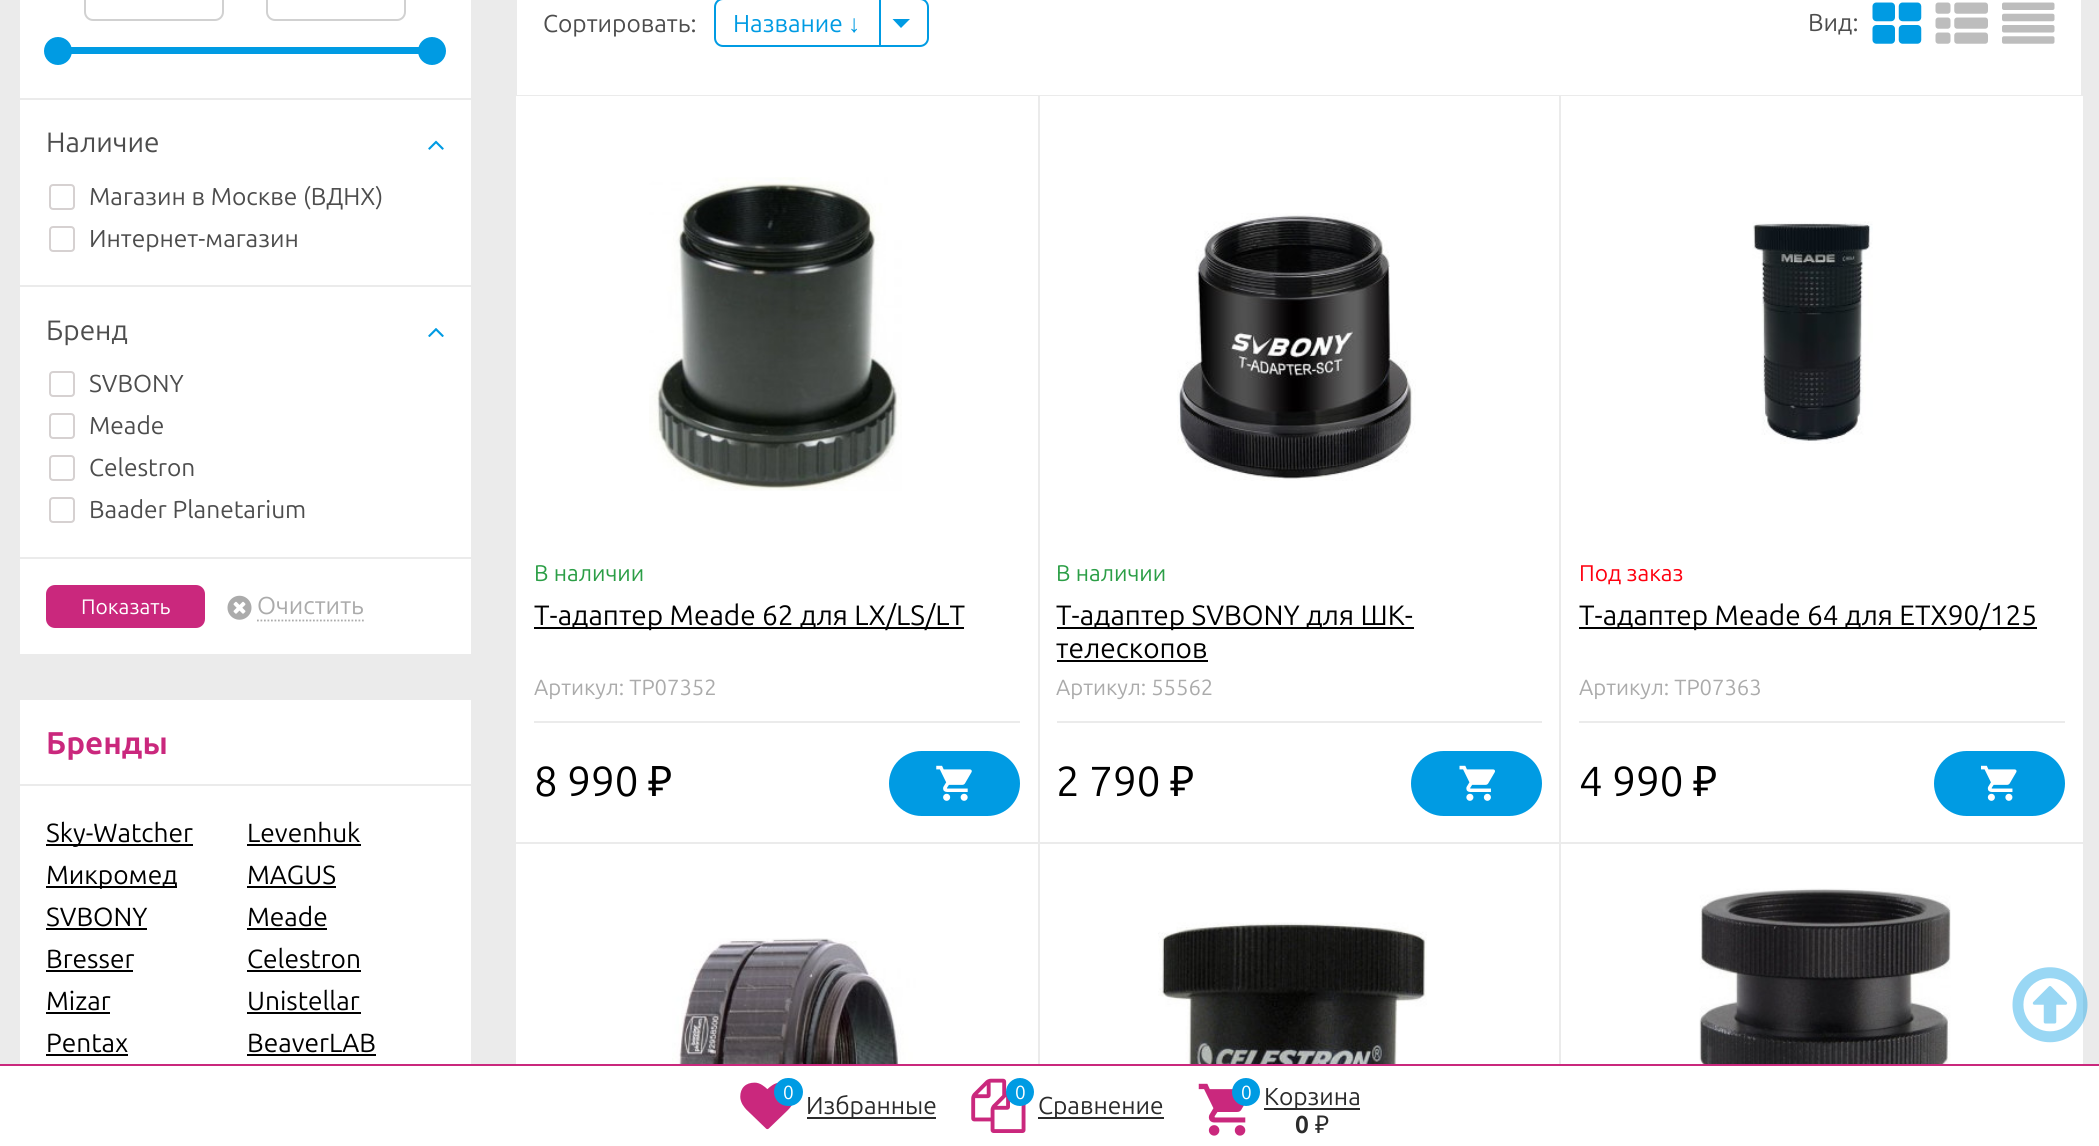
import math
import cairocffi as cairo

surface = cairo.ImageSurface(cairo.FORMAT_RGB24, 2099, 1146)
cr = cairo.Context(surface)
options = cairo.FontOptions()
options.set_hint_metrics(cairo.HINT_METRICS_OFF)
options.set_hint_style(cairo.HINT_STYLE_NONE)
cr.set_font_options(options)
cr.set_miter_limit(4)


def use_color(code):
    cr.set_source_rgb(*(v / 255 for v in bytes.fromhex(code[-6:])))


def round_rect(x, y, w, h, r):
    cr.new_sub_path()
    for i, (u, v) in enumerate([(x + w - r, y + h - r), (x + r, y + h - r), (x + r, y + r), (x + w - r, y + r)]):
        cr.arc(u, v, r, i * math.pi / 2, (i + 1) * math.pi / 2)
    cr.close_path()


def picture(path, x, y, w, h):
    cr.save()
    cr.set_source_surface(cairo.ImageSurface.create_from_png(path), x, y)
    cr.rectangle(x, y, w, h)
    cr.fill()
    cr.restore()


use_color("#ebebeb")
cr.paint()
use_color("#ffffff")
cr.rectangle(20, 0, 451, 654)
cr.fill()
use_color("#ebebeb")
cr.rectangle(19, 98, 452, 2)
cr.fill()
round_rect(85, -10, 138, 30, 8)
use_color("#d1d1d1")
cr.stroke()
round_rect(267, -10, 138, 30, 8)
cr.stroke()
use_color("#009be3")
cr.rectangle(71, 47, 348, 7)
cr.fill()
cr.arc(58, 51, 14, 0, 2 * math.pi)
cr.fill()
cr.arc(432, 51, 14, 0, 2 * math.pi)
cr.fill()
use_color("#ebebeb")
cr.rectangle(19, 285, 452, 2)
cr.fill()
cr.select_font_face("Ubuntu")
cr.set_font_size(28)
use_color("#4d4d4d")
cr.move_to(46, 152)
cr.show_text("Наличие")
picture("img1.png", 428, 140, 16, 10)
round_rect(50, 185, 24, 24, 3)
use_color("#d6d1d1")
cr.stroke()
cr.set_font_size(24.5)
use_color("#4d4d4d")
cr.move_to(89, 205)
cr.show_text("Магазин в Москве (ВДНХ)")
round_rect(50, 227, 24, 24, 3)
use_color("#d6d1d1")
cr.stroke()
use_color("#4d4d4d")
cr.move_to(89, 247)
cr.show_text("Интернет-магазин")
use_color("#ebebeb")
cr.rectangle(19, 557, 452, 2)
cr.fill()
cr.set_font_size(28)
use_color("#4d4d4d")
cr.move_to(46, 340)
cr.show_text("Бренд")
picture("img2.png", 428, 328, 16, 9)
round_rect(50, 372, 24, 24, 3)
use_color("#d6d1d1")
cr.stroke()
cr.set_font_size(24.5)
use_color("#4d4d4d")
cr.move_to(89, 392)
cr.show_text("SVBONY")
round_rect(50, 414, 24, 24, 3)
use_color("#d6d1d1")
cr.stroke()
use_color("#4d4d4d")
cr.move_to(89, 434)
cr.show_text("Meade")
round_rect(50, 456, 24, 24, 3)
use_color("#d6d1d1")
cr.stroke()
use_color("#4d4d4d")
cr.move_to(89, 476)
cr.show_text("Celestron")
round_rect(50, 498, 24, 24, 3)
use_color("#d6d1d1")
cr.stroke()
use_color("#4d4d4d")
cr.move_to(89, 518)
cr.show_text("Baader Planetarium")
use_color("#ca287d")
round_rect(46, 585, 159, 43, 9)
cr.fill()
cr.set_font_size(21)
use_color("#ffffff")
cr.move_to(81, 614)
cr.show_text("Показать")
cr.new_path()
cr.move_to(257, 620.5)
cr.line_to(364, 620.5)
use_color("#ababab")
cr.set_line_width(1.8)
cr.set_dash([1.75, 1.75])
cr.stroke()
picture("img3.png", 227, 595, 25, 25)
cr.set_font_size(24.5)
cr.move_to(257, 614)
cr.show_text("Очистить")
use_color("#ffffff")
cr.rectangle(20, 700, 451, 364)
cr.fill()
use_color("#ebebeb")
cr.rectangle(19, 784, 452, 2)
cr.fill()
cr.select_font_face("Ubuntu", cairo.FONT_SLANT_NORMAL, cairo.FONT_WEIGHT_BOLD)
cr.set_font_size(31.5)
use_color("#ca287d")
cr.move_to(46, 754)
cr.show_text("Бренды")
use_color("#000000")
cr.rectangle(46, 844, 147, 2)
cr.fill()
cr.select_font_face("Ubuntu")
cr.set_font_size(26.25)
cr.move_to(46, 842)
cr.show_text("Sky-Watcher")
cr.move_to(247, 842)
cr.show_text("Levenhuk")
cr.rectangle(247, 844, 114, 2)
cr.fill()
cr.rectangle(46, 886, 131, 2)
cr.fill()
cr.move_to(46, 884)
cr.show_text("Микромед")
cr.move_to(247, 884)
cr.show_text("MAGUS")
cr.rectangle(247, 886, 89, 2)
cr.fill()
cr.move_to(46, 926)
cr.show_text("SVBONY")
cr.rectangle(46, 928, 101, 2)
cr.fill()
cr.move_to(247, 926)
cr.show_text("Meade")
cr.rectangle(247, 928, 80, 2)
cr.fill()
cr.move_to(46, 968)
cr.show_text("Bresser")
cr.rectangle(46, 970, 87, 2)
cr.fill()
cr.move_to(247, 968)
cr.show_text("Celestron")
cr.rectangle(247, 970, 114, 2)
cr.fill()
cr.move_to(46, 1010)
cr.show_text("Mizar")
cr.rectangle(46, 1012, 64, 2)
cr.fill()
cr.move_to(247, 1010)
cr.show_text("Unistellar")
cr.rectangle(247, 1012, 114, 2)
cr.fill()
cr.move_to(46, 1052)
cr.show_text("Pentax")
cr.rectangle(46, 1054, 82, 2)
cr.fill()
cr.move_to(247, 1052)
cr.show_text("BeaverLAB")
cr.rectangle(247, 1054, 129, 2)
cr.fill()
use_color("#ffffff")
cr.rectangle(517, 0, 1564, 1064)
cr.fill()
cr.set_font_size(24.5)
use_color("#4d4d4d")
cr.move_to(543, 32)
cr.show_text("Сортировать:")
round_rect(715, -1, 213, 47, 8)
use_color("#009be3")
cr.set_line_width(2)
cr.set_dash([])
cr.stroke()
cr.rectangle(879, 0, 2, 46)
cr.fill()
cr.move_to(733, 32)
cr.show_text("Название")
cr.select_font_face("Liberation Sans")
cr.move_to(848, 32)
cr.show_text("↓")
cr.new_path()
cr.move_to(892.5, 19)
cr.line_to(910, 19)
cr.line_to(901, 28)
cr.close_path()
cr.fill()
cr.select_font_face("Ubuntu")
use_color("#4d4d4d")
cr.move_to(1808, 31)
cr.show_text("Вид:")
picture("img4.png", 1872, 2, 50, 42)
picture("img5.png", 1935, 2, 53, 42)
picture("img6.png", 2002, 2, 53, 42)
use_color("#ebebeb")
cr.rectangle(516, 95, 1568, 1)
cr.fill()
use_color("#ffffff")
cr.rectangle(516, 96, 1, 746)
cr.fill()
use_color("#ebebeb")
cr.rectangle(1038, 96, 2, 968)
cr.fill()
cr.rectangle(516, 842, 524, 2)
cr.fill()
picture("img7.png", 649, 177, 253, 314)
cr.set_font_size(22.75)
use_color("#2b9e46")
cr.move_to(534, 581)
cr.show_text("В наличии")
use_color("#000000")
cr.rectangle(534, 627, 430, 2)
cr.fill()
cr.set_font_size(28)
cr.move_to(534, 625)
cr.show_text("T-адаптер Meade 62 для LX/LS/LT")
cr.set_font_size(22)
use_color("#ababab")
cr.move_to(534, 695)
cr.show_text("Артикул: TP07352")
use_color("#ebebeb")
cr.rectangle(534, 721, 486, 2)
cr.fill()
cr.set_font_size(42)
use_color("#000000")
cr.move_to(534, 796)
cr.show_text("8 990")
cr.select_font_face("Noto Sans")
cr.move_to(648, 796)
cr.show_text("₽")
use_color("#009be3")
round_rect(889, 751, 131, 65, 32.5)
cr.fill()
picture("img8.png", 936, 765, 36, 36)
use_color("#ebebeb")
cr.rectangle(1559, 96, 2, 968)
cr.fill()
cr.rectangle(1040, 842, 1044, 2)
cr.fill()
picture("img9.png", 1177, 213, 239, 268)
cr.select_font_face("Ubuntu")
cr.set_font_size(22.75)
use_color("#2b9e46")
cr.move_to(1056, 581)
cr.show_text("В наличии")
use_color("#000000")
cr.rectangle(1057, 627, 357, 2)
cr.fill()
cr.set_font_size(28)
cr.move_to(1056, 625)
cr.show_text("Т-адаптер SVBONY для ШК-")
cr.move_to(1056, 658)
cr.show_text("телескопов")
cr.rectangle(1057, 660, 151, 2)
cr.fill()
cr.set_font_size(22)
use_color("#ababab")
cr.move_to(1056, 695)
cr.show_text("Артикул: 55562")
use_color("#ebebeb")
cr.rectangle(1057, 721, 485, 2)
cr.fill()
cr.set_font_size(42)
use_color("#000000")
cr.move_to(1056, 796)
cr.show_text("2 790")
cr.select_font_face("Noto Sans")
cr.move_to(1170, 796)
cr.show_text("₽")
use_color("#009be3")
round_rect(1411, 751, 131, 65, 32.5)
cr.fill()
picture("img10.png", 1459, 765, 36, 36)
use_color("#ffffff")
cr.rectangle(2081, 96, 2, 746)
cr.fill()
picture("img11.png", 1752, 221, 121, 223)
cr.select_font_face("Ubuntu")
cr.set_font_size(22.75)
use_color("#ff000f")
cr.move_to(1579, 581)
cr.show_text("Под заказ")
use_color("#000000")
cr.rectangle(1579, 627, 458, 2)
cr.fill()
cr.set_font_size(28)
cr.move_to(1579, 625)
cr.show_text("T-адаптер Meade 64 для ETX90/125")
cr.set_font_size(22)
use_color("#ababab")
cr.move_to(1579, 695)
cr.show_text("Артикул: TP07363")
use_color("#ebebeb")
cr.rectangle(1579, 721, 486, 2)
cr.fill()
cr.set_font_size(42)
use_color("#000000")
cr.move_to(1579, 796)
cr.show_text("4 990")
cr.select_font_face("Noto Sans")
cr.move_to(1693, 796)
cr.show_text("₽")
use_color("#009be3")
round_rect(1934, 751, 131, 65, 32.5)
cr.fill()
picture("img12.png", 1981, 765, 36, 36)
use_color("#ffffff")
cr.rectangle(516, 844, 1, 220)
cr.fill()
picture("img13.png", 672, 938, 244, 126)
picture("img14.png", 1158, 922, 269, 142)
cr.rectangle(2081, 844, 2, 220)
cr.fill()
picture("img15.png", 1699, 888, 252, 176)
picture("img16.png", 2012, 967, 76, 76)
cr.rectangle(0, 1066, 2099, 80)
cr.fill()
use_color("#ca287d")
cr.rectangle(0, 1064, 2099, 2)
cr.fill()
picture("img17.png", 740, 1082, 52, 48)
use_color("#009be3")
round_rect(774, 1078, 29, 28, 14)
cr.fill()
cr.select_font_face("Ubuntu")
cr.set_font_size(19)
use_color("#ffffff")
cr.move_to(783, 1099)
cr.show_text("0")
use_color("#2b2b2b")
cr.rectangle(807, 1117, 129, 2)
cr.fill()
cr.set_font_size(24.5)
cr.move_to(806, 1114)
cr.show_text("Избранные")
picture("img18.png", 971, 1078, 55, 55)
use_color("#009be3")
cr.arc(1020, 1092, 14, 0, 2 * math.pi)
cr.fill()
cr.set_font_size(19)
use_color("#ffffff")
cr.move_to(1015, 1099)
cr.show_text("0")
use_color("#2b2b2b")
cr.rectangle(1038, 1117, 126, 2)
cr.fill()
cr.set_font_size(24.5)
cr.move_to(1038, 1114)
cr.show_text("Сравнение")
picture("img19.png", 1198, 1083, 48, 53)
use_color("#009be3")
cr.arc(1246, 1092, 14, 0, 2 * math.pi)
cr.fill()
cr.set_font_size(19)
use_color("#ffffff")
cr.move_to(1241, 1099)
cr.show_text("0")
use_color("#2b2b2b")
cr.rectangle(1264, 1108, 96, 2)
cr.fill()
cr.set_font_size(24.5)
cr.move_to(1264, 1105)
cr.show_text("Корзина")
cr.select_font_face("Ubuntu", cairo.FONT_SLANT_NORMAL, cairo.FONT_WEIGHT_BOLD)
cr.move_to(1295, 1133)
cr.show_text("0")
cr.select_font_face("Noto Sans")
cr.move_to(1315, 1133)
cr.show_text("₽")
surface.write_to_png("result.png")
